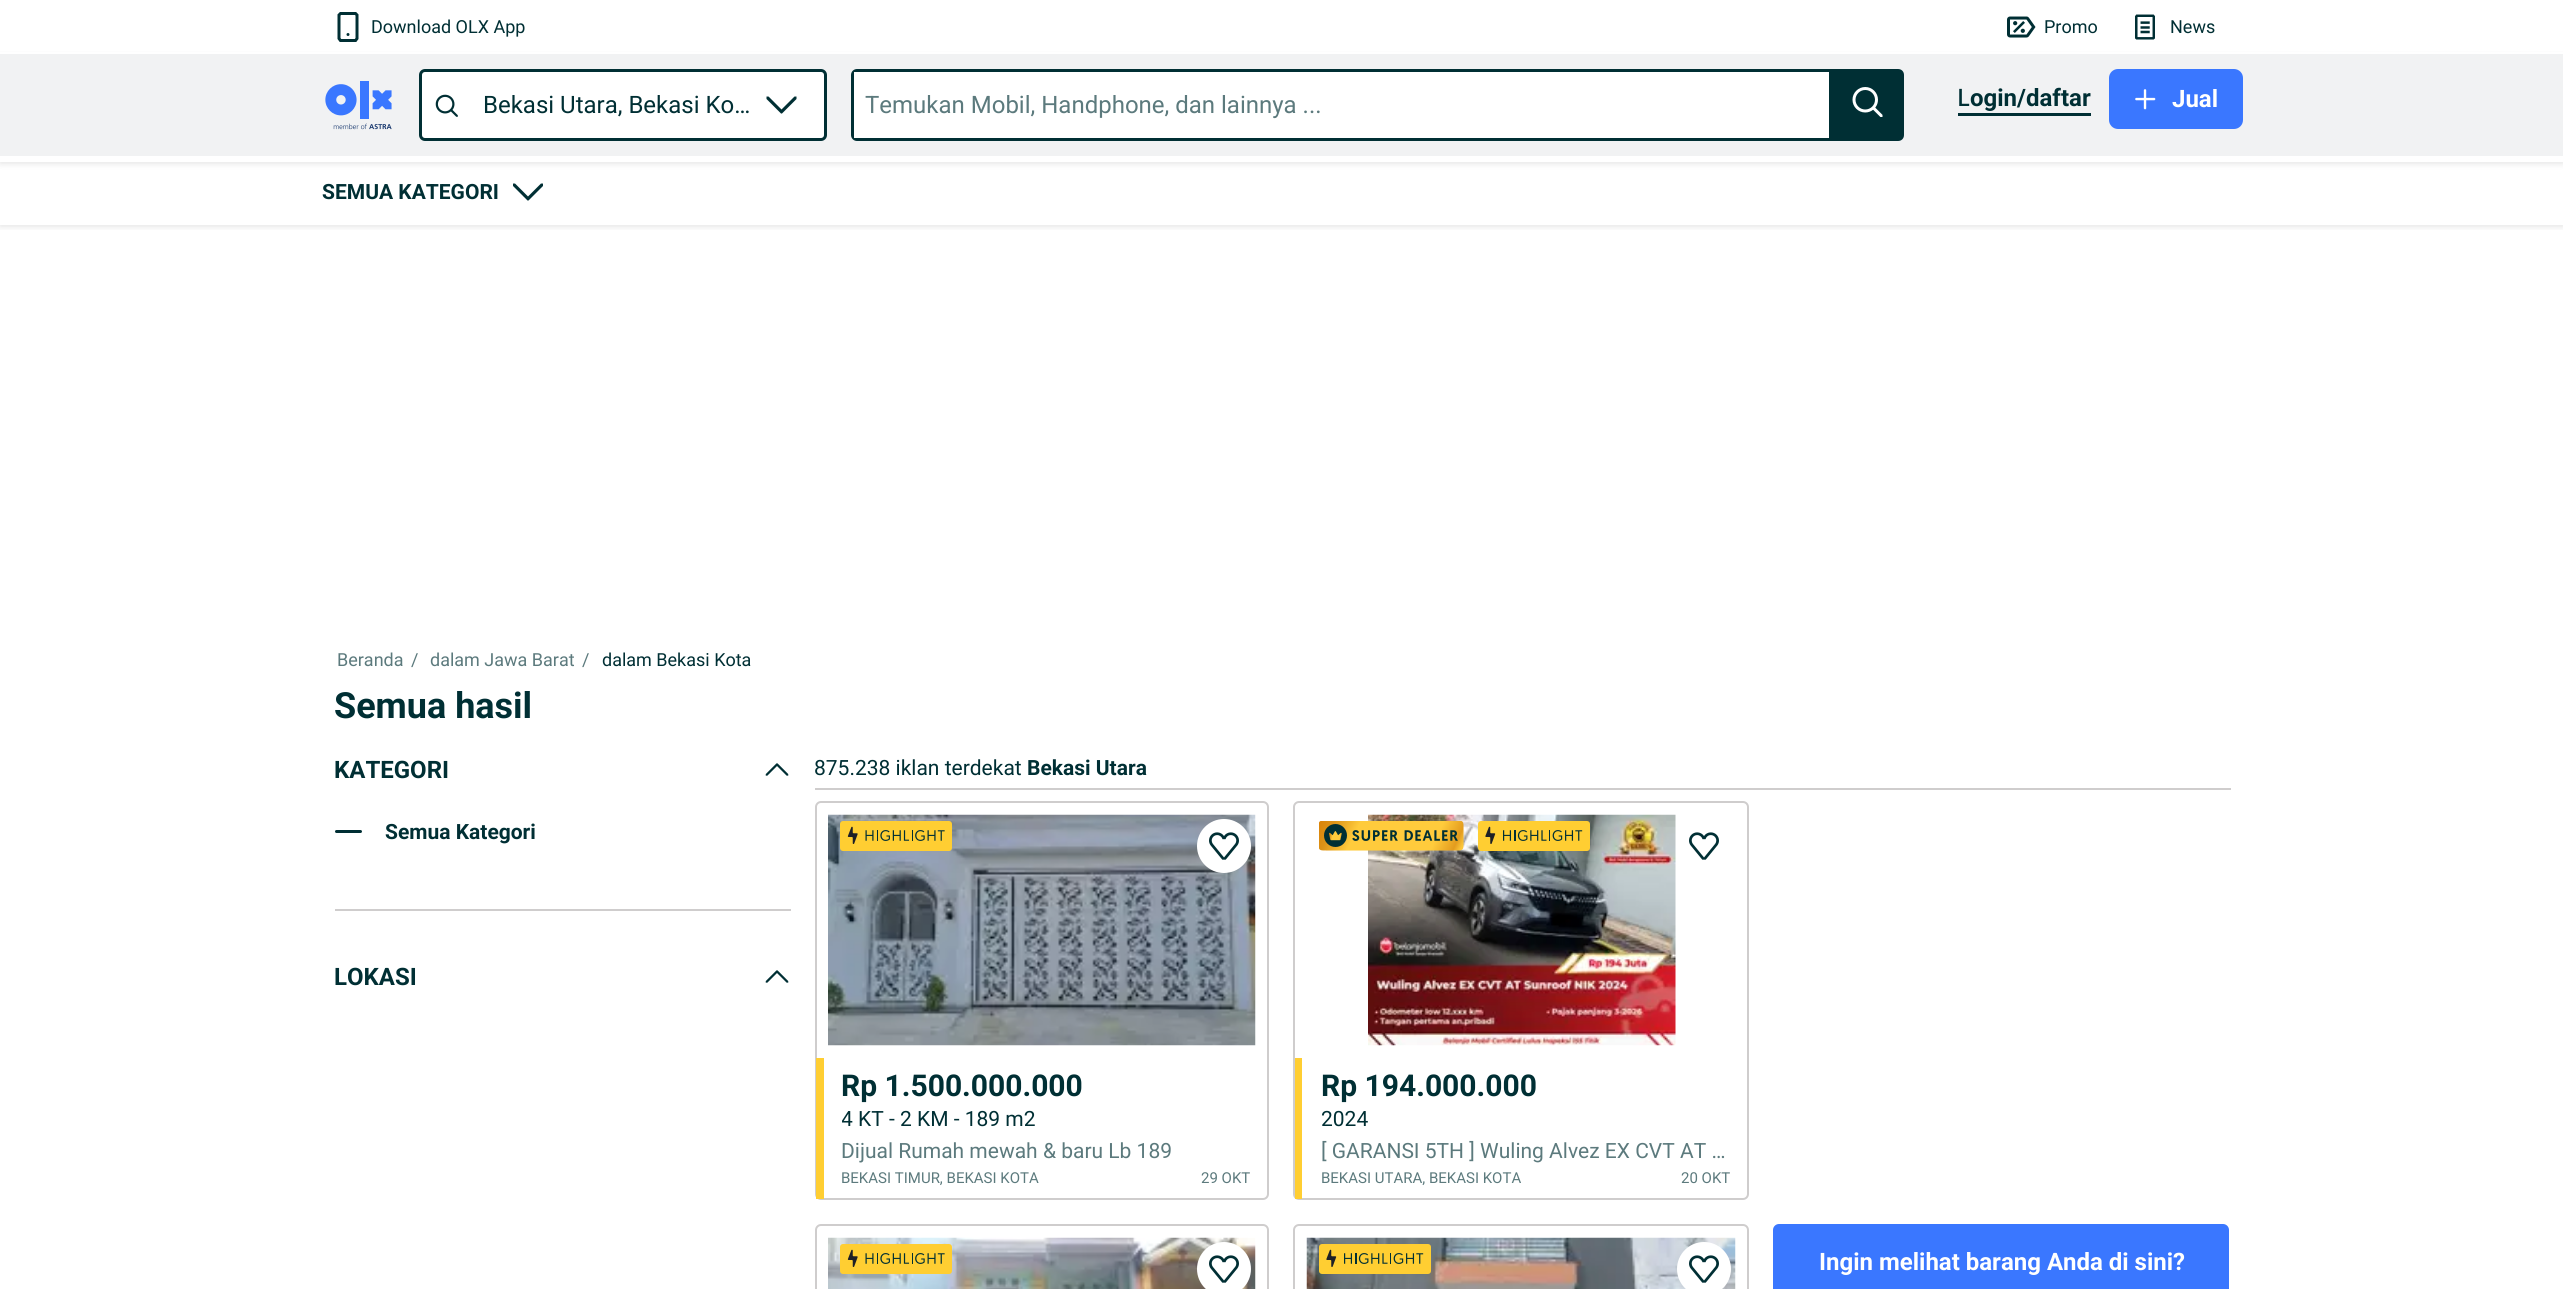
import math
import cairocffi as cairo

surface = cairo.ImageSurface(cairo.FORMAT_RGB24, 2563, 1289)
cr = cairo.Context(surface)
options = cairo.FontOptions()
options.set_hint_metrics(cairo.HINT_METRICS_OFF)
options.set_hint_style(cairo.HINT_STYLE_NONE)
cr.set_font_options(options)
cr.set_miter_limit(4)


def use_color(code):
    cr.set_source_rgb(*(v / 255 for v in bytes.fromhex(code[-6:])))


def round_rect(x, y, w, h, r):
    cr.new_sub_path()
    for i, (u, v) in enumerate([(x + w - r, y + h - r), (x + r, y + h - r), (x + r, y + r), (x + w - r, y + r)]):
        cr.arc(u, v, r, i * math.pi / 2, (i + 1) * math.pi / 2)
    cr.close_path()


def shadow(x, y, w, h, r, blur, alpha):
    cr.push_group_with_content(cairo.CONTENT_ALPHA)
    cr.set_operator(cairo.OPERATOR_SOURCE)
    for i in range(15, -16, -2):
        e = blur * i / 6
        if min(w, h) + 2 * e > 0:
            cr.set_source_rgba(0, 0, 0, alpha * math.erfc((i - 1) / 8.5) / 2)
            round_rect(x - e, y - e, w + 2 * e, h + 2 * e, max(0, min(r + e + blur * .6, min(w, h) / 2 + e)))
            cr.fill()
    cr.mask(cr.pop_group())


def picture(path, x, y, w, h):
    cr.save()
    cr.set_source_surface(cairo.ImageSurface.create_from_png(path), x, y)
    cr.rectangle(x, y, w, h)
    cr.fill()
    cr.restore()


use_color("#ffffff")
cr.paint()
use_color("#000000")
shadow(0, 56, 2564, 108, 0, 3, 0.1)
cr.save()
cr.rectangle(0, 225, 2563, 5)
cr.clip()
shadow(0, 59, 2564, 168, 0, 3, 0.1)
cr.restore()
use_color("#ffffff")
cr.rectangle(0, 156, 2563, 6)
cr.fill()
cr.rectangle(0, 52, 2563, 2)
cr.fill()
picture("img1.png", 337, 12, 22, 30)
cr.select_font_face("Roboto")
cr.set_font_size(18)
use_color("#002f34")
cr.move_to(371, 33)
cr.show_text("Download OLX App")
picture("img2.png", 2007, 16, 29, 22)
cr.move_to(2044, 33)
cr.show_text("Promo")
picture("img3.png", 2135, 14, 20, 26)
cr.move_to(2170, 33)
cr.show_text("News")
use_color("#f1f2f3")
cr.rectangle(0, 54, 2563, 102)
cr.fill()
picture("img4.png", 325, 81, 67, 49)
use_color("#ffffff")
round_rect(420.5, 70.5, 405, 69, 4.5)
cr.fill_preserve()
use_color("#002f34")
cr.set_line_width(3)
cr.stroke()
picture("img5.png", 435, 94, 23, 23)
cr.set_font_size(24)
cr.move_to(483, 113)
cr.show_text("Bekasi Utara, Bekasi Ko…")
cr.set_fill_rule(cairo.FILL_RULE_EVEN_ODD)
cr.new_path()
cr.move_to(766.5, 96.5)
cr.line_to(768.5, 96.5)
cr.line_to(781.5, 109.5)
cr.line_to(794.5, 96.5)
cr.line_to(796.5, 96.5)
cr.line_to(796.5, 99)
cr.line_to(782, 113.5)
cr.line_to(781, 113.5)
cr.line_to(766.5, 99)
cr.close_path()
cr.fill()
cr.new_path()
cr.move_to(857, 70.5)
cr.line_to(1830.5, 70.5)
cr.line_to(1830.5, 139.5)
cr.line_to(857, 139.5)
cr.curve_to(854.5, 139.5, 852.5, 137.5, 852.5, 135)
cr.line_to(852.5, 75)
cr.curve_to(852.5, 72.5, 854.5, 70.5, 857, 70.5)
cr.close_path()
cr.stroke()
use_color("#ffffff")
cr.rectangle(854, 72, 975, 66)
cr.fill()
use_color("#5c7a7d")
cr.move_to(865, 113)
cr.show_text("Temukan Mobil, Handphone, dan lainnya ...")
use_color("#002f34")
cr.new_path()
cr.move_to(1832, 69)
cr.line_to(1898, 69)
cr.curve_to(1901.5, 69, 1904, 71.5, 1904, 75)
cr.line_to(1904, 135)
cr.curve_to(1904, 138.5, 1901.5, 141, 1898, 141)
cr.line_to(1832, 141)
cr.close_path()
cr.fill()
picture("img6.png", 1852, 87, 31, 30)
cr.rectangle(1958, 113, 133, 3)
cr.fill()
cr.select_font_face("Noto Sans Medium")
cr.move_to(1957, 106)
cr.show_text("L")
cr.select_font_face("Roboto", cairo.FONT_SLANT_NORMAL, cairo.FONT_WEIGHT_BOLD)
cr.move_to(1970, 106)
cr.show_text("ogin/daftar")
use_color("#3a77ff")
round_rect(2109, 69, 134, 60, 9)
cr.fill()
picture("img7.png", 2135, 89, 21, 21)
use_color("#ffffff")
cr.move_to(2172, 107)
cr.show_text("Jual")
cr.set_font_size(21)
use_color("#002f34")
cr.move_to(322, 199)
cr.show_text("SEMUA KATEGORI")
cr.new_path()
cr.move_to(513, 183.5)
cr.line_to(515, 183.5)
cr.line_to(528, 196.5)
cr.line_to(541, 183.5)
cr.line_to(543, 183.5)
cr.line_to(543, 186)
cr.line_to(528.5, 200.5)
cr.line_to(527.5, 200.5)
cr.line_to(513, 186)
cr.close_path()
cr.fill()
cr.select_font_face("Roboto")
cr.set_font_size(18)
use_color("#5c7a7d")
cr.move_to(337, 666)
cr.show_text("Beranda")
cr.move_to(411, 666)
cr.show_text("/")
cr.move_to(430, 666)
cr.show_text("dalam Jawa Barat")
cr.move_to(582, 666)
cr.show_text("/")
use_color("#002f34")
cr.move_to(602, 666)
cr.show_text("dalam Bekasi Kota")
cr.select_font_face("Roboto", cairo.FONT_SLANT_NORMAL, cairo.FONT_WEIGHT_BOLD)
cr.set_font_size(36)
cr.move_to(334, 718)
cr.show_text("Semua hasil")
cr.set_font_size(24)
cr.move_to(334, 778)
cr.show_text("KATEGORI")
picture("img8.png", 765, 763, 24, 13)
round_rect(335, 830, 27, 3, 1.5)
cr.fill()
cr.set_font_size(21)
cr.move_to(385, 839)
cr.show_text("Semua Kategori")
use_color("#cfcdcd")
cr.rectangle(335, 909, 456, 2)
cr.fill()
cr.set_font_size(24)
use_color("#002f34")
cr.move_to(334, 985)
cr.show_text("LOKASI")
picture("img8.png", 765, 970, 24, 13)
use_color("#cfcdcd")
cr.rectangle(815, 788, 1416, 2)
cr.fill()
cr.select_font_face("Roboto")
cr.set_font_size(21)
use_color("#002f34")
cr.move_to(814, 775)
cr.show_text("875.238 iklan terdekat")
cr.select_font_face("Roboto", cairo.FONT_SLANT_NORMAL, cairo.FONT_WEIGHT_BOLD)
cr.move_to(1027, 775)
cr.show_text("Bekasi Utara")
round_rect(816, 802, 452, 397, 5)
use_color("#cfcdcd")
cr.set_line_width(2)
cr.stroke()
picture("img10.png", 828, 814, 428, 232)
use_color("#ffffff")
cr.arc(1224, 846, 27, 0, 2 * math.pi)
cr.fill()
picture("img9.png", 1209, 832, 30, 28)
picture("img11.png", 840, 821, 112, 30)
use_color("#ffce32")
cr.rectangle(816, 1058, 8, 141)
cr.fill()
cr.set_font_size(30)
use_color("#002f34")
cr.move_to(841, 1096)
cr.show_text("Rp 1.500.000.000")
cr.save()
cr.set_fill_rule(cairo.FILL_RULE_WINDING)
cr.rectangle(842, 1107, 193, 24)
cr.clip()
cr.select_font_face("Roboto")
cr.set_font_size(21)
cr.move_to(841, 1126)
cr.show_text("4 KT - 2 KM - 189 m2")
cr.restore()
cr.select_font_face("Roboto")
cr.set_font_size(21)
use_color("#5c7a7d")
cr.move_to(841, 1158)
cr.show_text("Dijual Rumah mewah & baru Lb 189")
cr.set_font_size(15)
cr.move_to(841, 1183)
cr.show_text("BEKASI TIMUR, BEKASI KOTA")
cr.move_to(1201, 1183)
cr.show_text("29 OKT")
round_rect(1294, 802, 454, 397, 5)
use_color("#cfcdcd")
cr.stroke()
picture("img9.png", 1689, 832, 30, 28)
picture("img12.png", 1368, 814, 308, 232)
picture("img13.png", 1319, 821, 145, 30)
picture("img14.png", 1478, 821, 112, 30)
use_color("#ffce32")
cr.rectangle(1295, 1058, 7, 141)
cr.fill()
cr.select_font_face("Roboto", cairo.FONT_SLANT_NORMAL, cairo.FONT_WEIGHT_BOLD)
cr.set_font_size(30)
use_color("#002f34")
cr.move_to(1321, 1096)
cr.show_text("Rp 194.000.000")
cr.select_font_face("Roboto")
cr.set_font_size(21)
cr.move_to(1321, 1126)
cr.show_text("2024")
use_color("#5c7a7d")
cr.move_to(1321, 1158)
cr.show_text("[ GARANSI 5TH ] Wuling Alvez EX CVT AT …")
cr.set_font_size(15)
cr.move_to(1321, 1183)
cr.show_text("BEKASI UTARA, BEKASI KOTA")
cr.move_to(1681, 1183)
cr.show_text("20 OKT")
round_rect(816, 1225, 452, 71, 5)
use_color("#cfcdcd")
cr.stroke()
picture("img15.png", 828, 1237, 428, 52)
picture("img16.png", 840, 1244, 112, 30)
use_color("#ffffff")
cr.arc(1224, 1269, 27, 0, 2 * math.pi)
cr.fill()
picture("img9.png", 1209, 1255, 30, 28)
round_rect(1294, 1225, 454, 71, 5)
use_color("#cfcdcd")
cr.stroke()
picture("img17.png", 1306, 1237, 430, 52)
picture("img18.png", 1319, 1244, 112, 30)
use_color("#ffffff")
cr.arc(1704, 1269, 27, 0, 2 * math.pi)
cr.fill()
picture("img9.png", 1689, 1255, 30, 28)
use_color("#3a77ff")
round_rect(1773, 1224, 456, 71, 6)
cr.fill()
cr.select_font_face("Roboto", cairo.FONT_SLANT_NORMAL, cairo.FONT_WEIGHT_BOLD)
cr.set_font_size(24)
use_color("#ffffff")
cr.move_to(1819, 1270)
cr.show_text("Ingin melihat barang Anda di sini?")
surface.write_to_png("result.png")
